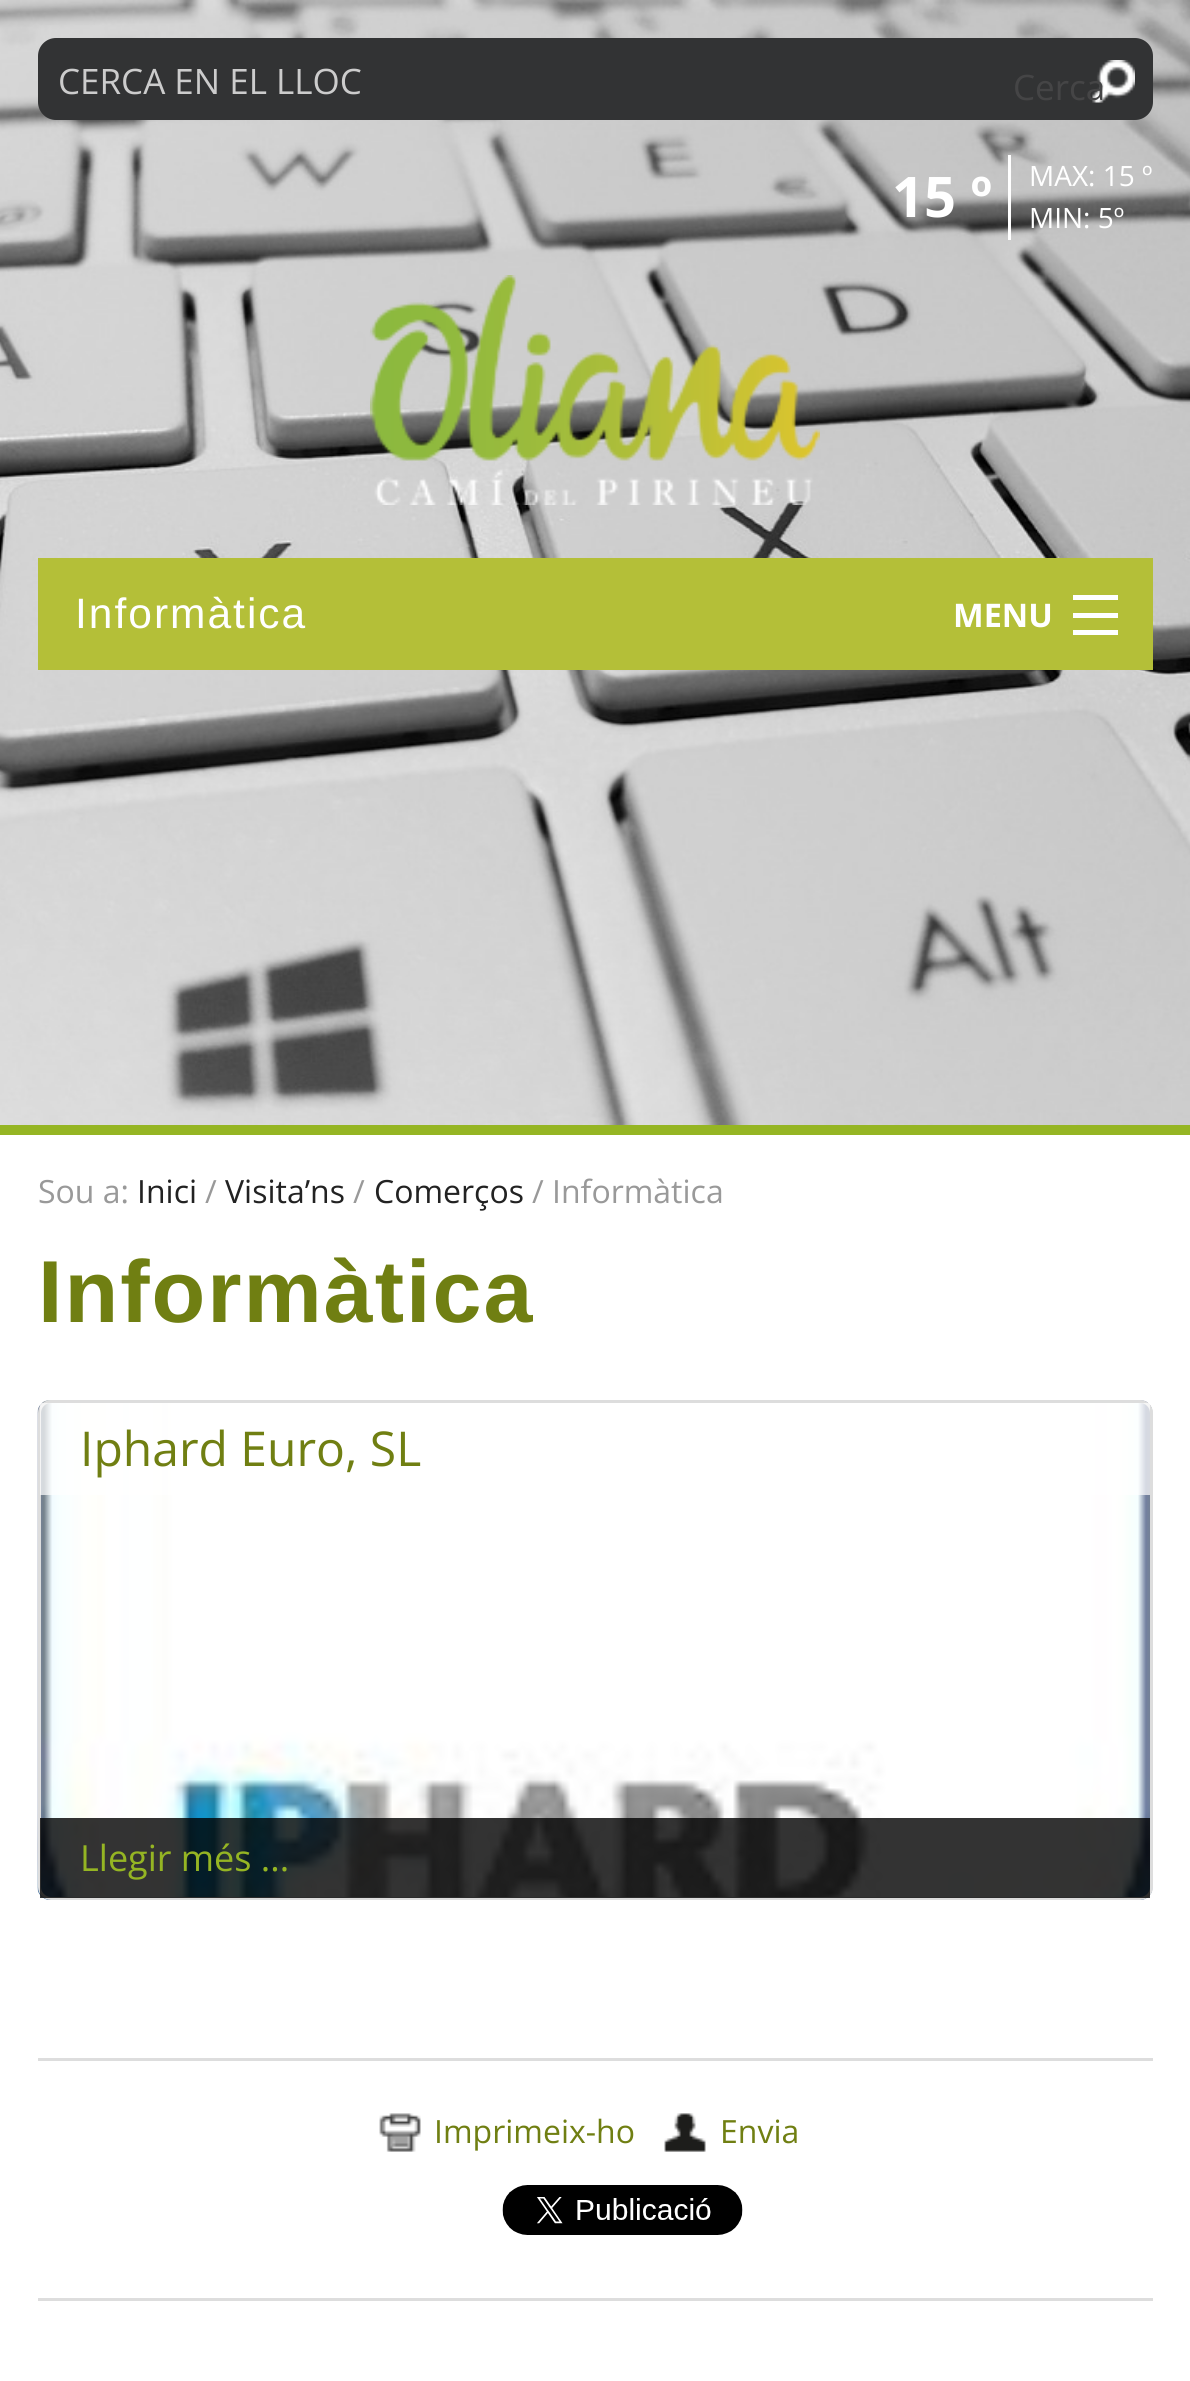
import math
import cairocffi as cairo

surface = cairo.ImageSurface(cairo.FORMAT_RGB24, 1190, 2381)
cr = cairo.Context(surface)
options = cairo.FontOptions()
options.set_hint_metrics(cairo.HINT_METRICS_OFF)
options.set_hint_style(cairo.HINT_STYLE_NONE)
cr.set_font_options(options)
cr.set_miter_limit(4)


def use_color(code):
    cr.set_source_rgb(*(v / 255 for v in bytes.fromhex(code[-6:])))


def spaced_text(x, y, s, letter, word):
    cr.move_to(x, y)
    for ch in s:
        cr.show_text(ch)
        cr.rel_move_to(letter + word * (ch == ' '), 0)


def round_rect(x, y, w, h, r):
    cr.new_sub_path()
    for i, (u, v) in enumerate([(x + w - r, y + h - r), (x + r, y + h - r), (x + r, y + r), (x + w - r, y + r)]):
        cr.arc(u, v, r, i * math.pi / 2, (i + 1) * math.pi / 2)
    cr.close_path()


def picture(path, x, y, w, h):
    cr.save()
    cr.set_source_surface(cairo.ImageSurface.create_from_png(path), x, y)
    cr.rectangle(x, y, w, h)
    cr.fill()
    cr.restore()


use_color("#ffffff")
cr.paint()
use_color("#95b523")
cr.rectangle(0, 1125, 1190, 10)
cr.fill()
picture("img1.png", 0, 0, 1190, 1125)
use_color("#323334")
round_rect(38, 38, 1115, 82, 18)
cr.fill()
cr.select_font_face("Open Sans")
cr.set_font_size(35)
use_color("#cccccc")
cr.move_to(58, 94)
cr.show_text("CERCA EN EL LLOC")
picture("img2.png", 1092, 60, 43, 43)
use_color("#454546")
cr.move_to(1013, 100)
cr.show_text("Cerca")
cr.select_font_face("Open Sans", cairo.FONT_SLANT_NORMAL, cairo.FONT_WEIGHT_BOLD)
cr.set_font_size(56)
use_color("#ffffff")
cr.move_to(892, 217)
cr.show_text("15 º")
cr.rectangle(1008, 155, 3, 85)
cr.fill()
cr.select_font_face("Open Sans")
cr.set_font_size(28)
cr.move_to(1029, 186)
cr.show_text("MAX: 15 º")
cr.move_to(1029, 228)
cr.show_text("MIN: 5º")
picture("img3.png", 370, 275, 450, 230)
use_color("#b4bf38")
cr.rectangle(38, 558, 1115, 112)
cr.fill()
cr.select_font_face("Liberation Sans")
cr.set_font_size(42.5)
use_color("#ffffff")
spaced_text(75, 628, "Informàtica", 2, 0)
cr.select_font_face("Open Sans", cairo.FONT_SLANT_NORMAL, cairo.FONT_WEIGHT_BOLD)
cr.set_font_size(32.5)
cr.move_to(953, 627)
cr.show_text("MENU")
cr.rectangle(1073, 630, 45, 5)
cr.fill()
cr.rectangle(1073, 613, 45, 5)
cr.fill()
cr.rectangle(1073, 595, 45, 5)
cr.fill()
cr.select_font_face("Open Sans")
cr.set_font_size(32)
use_color("#999999")
cr.move_to(38, 1203)
cr.show_text("Sou a:")
use_color("#222222")
cr.move_to(137, 1203)
cr.show_text("Inici")
use_color("#999999")
cr.move_to(205, 1203)
cr.show_text("/")
use_color("#222222")
cr.move_to(225, 1203)
cr.show_text("Visita’ns")
use_color("#999999")
cr.move_to(353, 1203)
cr.show_text("/")
use_color("#222222")
cr.move_to(374, 1203)
cr.show_text("Comerços")
use_color("#999999")
cr.move_to(532, 1203)
cr.show_text("/ Informàtica")
cr.select_font_face("Liberation Sans", cairo.FONT_SLANT_NORMAL, cairo.FONT_WEIGHT_BOLD)
cr.set_font_size(88)
use_color("#707f12")
spaced_text(38, 1322, "Informàtica", 2, 0)
picture("img4.png", 37, 1400, 1116, 500)
round_rect(39.5, 1401.5, 1112, 497, 11.5)
use_color("#dddddd")
cr.set_line_width(3)
cr.stroke()
cr.set_source_rgba(1, 1, 1, 0.7)
cr.rectangle(40, 1403, 1110, 92)
cr.fill()
cr.select_font_face("Open Sans")
cr.set_font_size(48)
use_color("#707f12")
cr.move_to(80, 1466)
cr.show_text("Iphard Euro, SL")
cr.set_source_rgba(0, 0, 0, 0.8)
cr.rectangle(40, 1818, 1110, 80)
cr.fill()
cr.set_font_size(36)
use_color("#95b523")
cr.move_to(80, 1871)
cr.show_text("Llegir més ...")
use_color("#dddddd")
cr.rectangle(38, 2058, 1115, 3)
cr.fill()
cr.rectangle(38, 2298, 1115, 3)
cr.fill()
picture("img5.png", 379, 2113, 42, 39)
cr.set_font_size(32)
use_color("#707f12")
cr.move_to(434, 2143)
cr.show_text("Imprimeix-ho")
picture("img6.png", 664, 2113, 42, 39)
cr.move_to(720, 2143)
cr.show_text("Envia")
picture("img7.png", 502, 2185, 241, 50)
surface.write_to_png("result.png")
